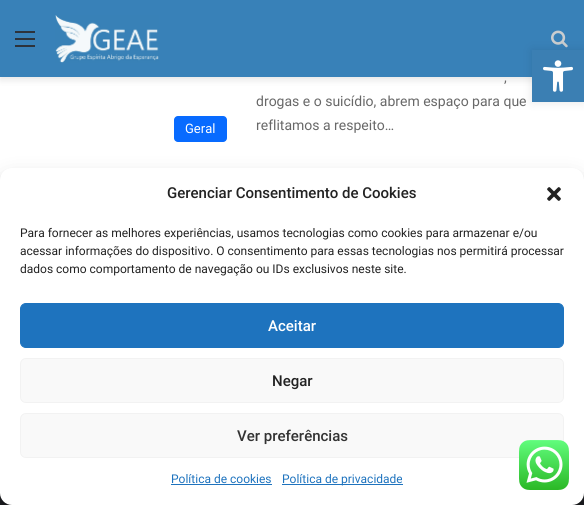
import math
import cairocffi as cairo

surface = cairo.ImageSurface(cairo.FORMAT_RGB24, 584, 505)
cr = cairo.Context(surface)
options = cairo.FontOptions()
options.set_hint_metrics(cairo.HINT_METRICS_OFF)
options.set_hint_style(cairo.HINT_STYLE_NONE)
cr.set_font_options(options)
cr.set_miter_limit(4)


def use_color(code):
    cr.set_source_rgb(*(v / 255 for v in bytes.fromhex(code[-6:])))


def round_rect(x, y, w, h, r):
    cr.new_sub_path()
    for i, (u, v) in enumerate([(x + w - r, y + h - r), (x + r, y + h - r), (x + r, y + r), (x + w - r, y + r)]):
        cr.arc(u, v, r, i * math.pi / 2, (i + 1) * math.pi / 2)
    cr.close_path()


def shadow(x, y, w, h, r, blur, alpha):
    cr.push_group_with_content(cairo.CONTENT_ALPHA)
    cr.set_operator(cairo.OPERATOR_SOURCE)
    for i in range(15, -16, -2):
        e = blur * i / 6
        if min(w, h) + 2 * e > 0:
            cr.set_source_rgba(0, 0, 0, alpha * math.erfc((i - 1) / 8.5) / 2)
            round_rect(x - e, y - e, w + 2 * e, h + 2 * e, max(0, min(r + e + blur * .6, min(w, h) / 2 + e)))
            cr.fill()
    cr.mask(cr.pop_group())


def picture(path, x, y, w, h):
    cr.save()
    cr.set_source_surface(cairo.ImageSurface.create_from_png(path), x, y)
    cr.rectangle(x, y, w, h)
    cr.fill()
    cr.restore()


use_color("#ffffff")
cr.paint()
use_color("#000000")
shadow(0, 3, 584, 77, 0, 3.5, 0.1)
use_color("#3881b8")
cr.rectangle(0, 0, 584, 77)
cr.fill()
use_color("#2d333b")
cr.rectangle(15, 38, 20, 2)
cr.fill()
cr.rectangle(15, 31, 20, 2)
cr.fill()
cr.rectangle(15, 45, 20, 2)
cr.fill()
picture("img1.png", 55, 15, 104, 48)
picture("img2.png", 551, 30, 17, 18)
use_color("#086bff")
round_rect(174, 116, 53, 26, 4)
cr.fill()
cr.select_font_face("Roboto")
cr.set_font_size(13)
use_color("#ffffff")
cr.move_to(185, 133)
cr.show_text("Geral")
cr.set_font_size(14)
use_color("#686868")
cr.move_to(504, 82)
cr.show_text(",")
cr.move_to(256, 106)
cr.show_text("drogas e o suicídio, abrem espaço para que")
cr.move_to(256, 130)
cr.show_text("reflitamos a respeito…")
use_color("#1f2024")
cr.rectangle(0, 493, 584, 12)
cr.fill()
use_color("#000000")
shadow(532, 50, 52, 52, 0, 5, 0.1)
use_color("#3b7fb3")
cr.rectangle(532, 50, 52, 52)
cr.fill()
picture("img3.png", 543, 60, 30, 32)
use_color("#000000")
shadow(0, 174, 584, 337, 12, 3, 0.23)
shadow(0, 178, 584, 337, 12, 10, 0.19)
use_color("#ffffff")
round_rect(0, 168, 584, 337, 12)
cr.fill()
cr.select_font_face("Roboto Medium")
cr.set_font_size(15)
use_color("#222222")
cr.move_to(167, 198)
cr.show_text("Gerenciar Consentimento de Cookies")
picture("img4.png", 547, 187, 14, 14)
cr.select_font_face("Roboto")
cr.set_font_size(12)
cr.move_to(20, 237)
cr.show_text("Para fornecer as melhores experiências, usamos tecnologias como cookies para armazenar e/ou")
cr.move_to(20, 255)
cr.show_text("acessar informações do dispositivo. O consentimento para essas tecnologias nos permitirá processar")
cr.move_to(20, 273)
cr.show_text("dados como comportamento de navegação ou IDs exclusivos neste site.")
use_color("#1e73be")
round_rect(20.5, 303.5, 543, 44, 5.5)
cr.fill_preserve()
cr.set_line_width(1)
cr.stroke()
cr.select_font_face("Roboto Medium")
cr.set_font_size(15)
use_color("#ffffff")
cr.move_to(268, 331)
cr.show_text("Aceitar")
use_color("#f9f9f9")
round_rect(20.5, 358.5, 543, 44, 5.5)
cr.fill_preserve()
use_color("#f2f2f2")
cr.stroke()
use_color("#222222")
cr.move_to(272, 386)
cr.show_text("Negar")
use_color("#f9f9f9")
round_rect(20.5, 413.5, 543, 44, 5.5)
cr.fill_preserve()
use_color("#f2f2f2")
cr.stroke()
use_color("#333333")
cr.move_to(237, 441)
cr.show_text("Ver preferências")
cr.select_font_face("Roboto")
cr.set_font_size(12)
use_color("#1e73be")
cr.move_to(171, 483)
cr.show_text("Política de cookies")
cr.rectangle(171, 484, 101, 1)
cr.fill()
cr.rectangle(282, 484, 121, 1)
cr.fill()
cr.move_to(282, 483)
cr.show_text("Política de privacidade")
picture("img5.png", 519, 440, 50, 50)
surface.write_to_png("result.png")
